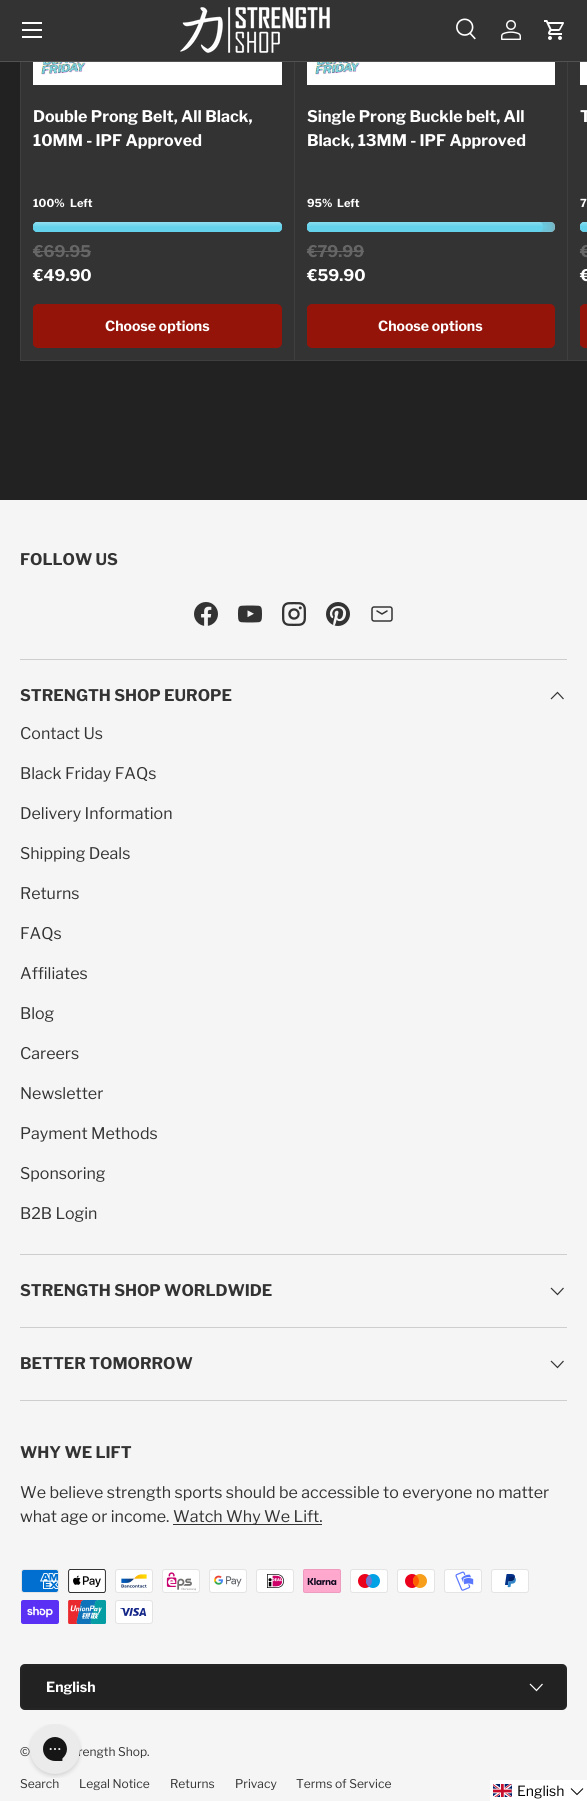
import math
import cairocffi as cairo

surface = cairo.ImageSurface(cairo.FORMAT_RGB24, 587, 1801)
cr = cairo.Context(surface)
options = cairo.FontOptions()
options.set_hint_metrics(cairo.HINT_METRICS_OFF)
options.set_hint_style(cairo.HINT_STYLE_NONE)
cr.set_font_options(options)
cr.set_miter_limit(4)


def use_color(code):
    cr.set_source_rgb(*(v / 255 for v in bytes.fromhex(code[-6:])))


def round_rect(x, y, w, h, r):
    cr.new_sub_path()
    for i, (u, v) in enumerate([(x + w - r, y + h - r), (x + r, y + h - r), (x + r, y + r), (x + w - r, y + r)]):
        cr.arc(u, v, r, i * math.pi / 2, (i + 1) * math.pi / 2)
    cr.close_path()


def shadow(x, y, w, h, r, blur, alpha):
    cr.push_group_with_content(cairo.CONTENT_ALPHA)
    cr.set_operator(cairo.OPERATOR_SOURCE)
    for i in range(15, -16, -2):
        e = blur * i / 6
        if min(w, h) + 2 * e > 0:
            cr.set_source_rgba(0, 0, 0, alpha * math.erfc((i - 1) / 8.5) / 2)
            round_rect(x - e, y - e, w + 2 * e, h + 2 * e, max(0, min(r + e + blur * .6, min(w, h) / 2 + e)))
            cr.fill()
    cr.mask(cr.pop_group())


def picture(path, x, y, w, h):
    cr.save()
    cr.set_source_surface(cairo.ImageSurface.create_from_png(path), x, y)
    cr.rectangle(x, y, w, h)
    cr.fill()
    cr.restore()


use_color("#222222")
cr.paint()
use_color("#333333")
cr.rectangle(20, 62, 274, 299)
cr.fill()
use_color("#3f3f3f")
cr.new_path()
cr.move_to(294, 361)
cr.line_to(20, 361)
cr.line_to(21, 360)
cr.line_to(294, 360)
cr.close_path()
cr.fill()
cr.set_source_rgba(0.502, 0.502, 0.502, 0.16)
cr.new_path()
cr.move_to(20, 361)
cr.line_to(20, -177)
cr.line_to(21, -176)
cr.line_to(21, 360)
cr.close_path()
cr.fill()
round_rect(33.5, 222.5, 248, 9, 3.5)
cr.set_source_rgba(1, 1, 1, 0.1)
cr.set_line_width(1)
cr.stroke()
use_color("#666666")
cr.rectangle(33, 251, 58, 1)
cr.fill()
cr.save()
round_rect(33, 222, 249, 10, 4)
cr.clip()
use_color("#64d2eb")
shadow(33, 222, 249, 10, 4, 20, 1)
shadow(33, 222, 249, 10, 4, 10, 1)
cr.restore()
use_color("#333333")
cr.rectangle(294, 62, 273, 299)
cr.fill()
use_color("#3f3f3f")
cr.new_path()
cr.move_to(567, 361)
cr.line_to(294, 361)
cr.line_to(295, 360)
cr.line_to(567, 360)
cr.close_path()
cr.fill()
cr.set_source_rgba(0.502, 0.502, 0.502, 0.16)
cr.new_path()
cr.move_to(294, 361)
cr.line_to(294, -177)
cr.line_to(295, -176)
cr.line_to(295, 360)
cr.close_path()
cr.fill()
use_color("#64d2eb")
round_rect(33, 222, 249, 10, 4)
cr.fill()
gradient = cairo.LinearGradient(158, 222, 158, 232)
gradient.add_color_stop_rgba(0, 1, 1, 1, 0.3)
gradient.add_color_stop_rgba(0.5, 1, 1, 1, 0)
cr.set_source(gradient)
round_rect(33, 222, 249, 10, 4)
cr.fill()
use_color("#8f8f8f")
round_rect(307, 222, 248, 10, 4)
cr.fill()
round_rect(307.5, 222.5, 247, 9, 3.5)
cr.set_source_rgba(1, 1, 1, 0.1)
cr.stroke()
use_color("#666666")
cr.rectangle(307, 251, 57, 1)
cr.fill()
cr.save()
round_rect(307, 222, 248, 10, 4)
cr.clip()
use_color("#64d2eb")
shadow(300, 222, 249, 10, 4, 19.5, 1)
shadow(300, 222, 249, 10, 4, 9.5, 1)
cr.restore()
use_color("#333333")
cr.rectangle(567, 62, 20, 299)
cr.fill()
use_color("#3f3f3f")
cr.new_path()
cr.move_to(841, 361)
cr.line_to(567, 361)
cr.line_to(568, 360)
cr.line_to(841, 360)
cr.close_path()
cr.fill()
cr.set_source_rgba(0.502, 0.502, 0.502, 0.16)
cr.new_path()
cr.move_to(567, 361)
cr.line_to(567, -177)
cr.line_to(568, -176)
cr.line_to(568, 360)
cr.close_path()
cr.fill()
use_color("#333333")
cr.rectangle(0, 0, 587, 61)
cr.fill()
use_color("#525252")
cr.rectangle(0, 61, 587, 1)
cr.fill()
use_color("#ffffff")
cr.rectangle(22, 22, 20, 2)
cr.fill()
cr.rectangle(22, 36, 20, 2)
cr.fill()
cr.rectangle(22, 29, 20, 2)
cr.fill()
picture("img1.png", 180, 7, 150, 46)
picture("img2.png", 456, 18, 20, 22)
picture("img3.png", 501, 20, 20, 20)
picture("img4.png", 544, 20, 20, 20)
picture("img5.png", 33, 62, 249, 23)
picture("img6.png", 41, 62, 45, 13)
cr.select_font_face("Libre Franklin", cairo.FONT_SLANT_NORMAL, cairo.FONT_WEIGHT_BOLD)
cr.set_font_size(16)
cr.move_to(33, 122)
cr.show_text("Double Prong Belt, All Black,")
cr.move_to(33, 146)
cr.show_text("10MM - IPF Approved")
cr.set_font_size(11)
cr.move_to(33, 207)
cr.show_text("100%")
cr.move_to(70, 207)
cr.show_text("Left")
cr.set_font_size(16)
use_color("#666666")
cr.move_to(33, 257)
cr.show_text("€69.95")
use_color("#ffffff")
cr.move_to(33, 281)
cr.show_text("€49.90")
cr.save()
round_rect(33, 304, 249, 44, 5)
cr.clip()
gradient = cairo.LinearGradient(-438, 239, 263, 413)
gradient.add_color_stop_rgba(0.6, 0.69, 0.231, 0.196, 1)
gradient.add_color_stop_rgba(0.6, 0.58, 0.078, 0.039, 1)
gradient.add_color_stop_rgba(1, 0.58, 0.078, 0.039, 1)
cr.set_source(gradient)
cr.rectangle(33, 306, 247, 40)
cr.fill()
cr.restore()
round_rect(34, 305, 247, 42, 4)
use_color("#94140a")
cr.set_line_width(2)
cr.stroke()
cr.set_font_size(14)
use_color("#ffffff")
cr.move_to(105, 331)
cr.show_text("Choose options")
picture("img7.png", 307, 62, 248, 23)
picture("img8.png", 315, 62, 45, 13)
cr.set_font_size(16)
cr.move_to(307, 122)
cr.show_text("Single Prong Buckle belt, All")
cr.move_to(307, 146)
cr.show_text("Black, 13MM - IPF Approved")
use_color("#64d2eb")
round_rect(307, 222, 236, 10, 4)
cr.fill()
gradient = cairo.LinearGradient(425, 221, 425, 232)
gradient.add_color_stop_rgba(0, 1, 1, 1, 0.3)
gradient.add_color_stop_rgba(0.5, 1, 1, 1, 0)
cr.set_source(gradient)
round_rect(307, 222, 236, 10, 4)
cr.fill()
cr.set_font_size(11)
use_color("#ffffff")
cr.move_to(307, 207)
cr.show_text("95%")
cr.move_to(337, 207)
cr.show_text("Left")
cr.set_font_size(16)
use_color("#666666")
cr.move_to(307, 257)
cr.show_text("€79.99")
use_color("#ffffff")
cr.move_to(307, 281)
cr.show_text("€59.90")
cr.save()
round_rect(307, 304, 248, 44, 5)
cr.clip()
gradient = cairo.LinearGradient(-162, 239, 536, 413)
gradient.add_color_stop_rgba(0.6, 0.69, 0.231, 0.196, 1)
gradient.add_color_stop_rgba(0.6, 0.58, 0.078, 0.039, 1)
gradient.add_color_stop_rgba(1, 0.58, 0.078, 0.039, 1)
cr.set_source(gradient)
cr.rectangle(307, 306, 246, 40)
cr.fill()
cr.restore()
round_rect(308, 305, 246, 42, 4)
use_color("#94140a")
cr.stroke()
cr.set_font_size(14)
use_color("#ffffff")
cr.move_to(378, 331)
cr.show_text("Choose options")
cr.rectangle(580, 62, 7, 23)
cr.fill()
cr.set_font_size(16)
cr.move_to(580, 122)
cr.show_text("T")
use_color("#8f8f8f")
cr.new_path()
cr.move_to(584, 222)
cr.line_to(587, 222)
cr.line_to(587, 232)
cr.line_to(584, 232)
cr.curve_to(582, 232, 580, 230, 580, 228)
cr.line_to(580, 226)
cr.curve_to(580, 224, 582, 222, 584, 222)
cr.close_path()
cr.fill()
round_rect(580.5, 222.5, 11, 9, 3.5)
cr.set_source_rgba(1, 1, 1, 0.1)
cr.set_line_width(1)
cr.stroke()
use_color("#666666")
cr.rectangle(580, 251, 7, 1)
cr.fill()
cr.save()
round_rect(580, 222, 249, 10, 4)
cr.clip()
use_color("#64d2eb")
shadow(548, 222, 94, 10, 4, 17, 1)
shadow(548, 222, 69, 10, 4, 8.5, 1)
cr.restore()
picture("img9.png", 580, 222, 7, 10)
picture("img10.png", 580, 222, 7, 4)
cr.set_font_size(11)
use_color("#ffffff")
cr.move_to(580, 207)
cr.show_text("7")
cr.set_font_size(16)
use_color("#666666")
cr.move_to(580, 257)
cr.show_text("€")
use_color("#ffffff")
cr.move_to(580, 281)
cr.show_text("€")
cr.save()
round_rect(580, 304, 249, 44, 5)
cr.clip()
gradient = cairo.LinearGradient(109, 239, 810, 413)
gradient.add_color_stop_rgba(0.6, 0.69, 0.231, 0.196, 1)
gradient.add_color_stop_rgba(0.6, 0.58, 0.078, 0.039, 1)
gradient.add_color_stop_rgba(1, 0.58, 0.078, 0.039, 1)
cr.set_source(gradient)
cr.rectangle(580, 306, 7, 40)
cr.fill()
cr.restore()
round_rect(581, 305, 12, 42, 4)
use_color("#94140a")
cr.set_line_width(2)
cr.stroke()
use_color("#f5f5f5")
cr.rectangle(0, 500, 587, 1301)
cr.fill()
use_color("#333333")
cr.move_to(20, 565)
cr.show_text("FOLLOW US")
picture("img11.png", 194, 602, 24, 24)
picture("img12.png", 238, 605, 24, 18)
picture("img13.png", 282, 602, 24, 24)
picture("img14.png", 326, 602, 24, 24)
picture("img15.png", 371, 606, 22, 16)
use_color("#cecece")
cr.rectangle(20, 659, 547, 1)
cr.fill()
cr.rectangle(20, 1254, 547, 1)
cr.fill()
use_color("#333333")
cr.move_to(20, 701)
cr.show_text("STRENGTH SHOP EUROPE")
cr.new_path()
cr.move_to(563.5, 699)
cr.line_to(557.5, 692.5)
cr.line_to(551, 699)
cr.set_line_width(1.2)
cr.stroke()
cr.select_font_face("Libre Franklin")
cr.move_to(20, 739)
cr.show_text("Contact Us")
cr.move_to(20, 779)
cr.show_text("Black Friday FAQs")
cr.move_to(20, 819)
cr.show_text("Delivery Information")
cr.move_to(20, 859)
cr.show_text("Shipping Deals")
cr.move_to(20, 899)
cr.show_text("Returns")
cr.move_to(20, 939)
cr.show_text("FAQs")
cr.move_to(20, 979)
cr.show_text("Affiliates")
cr.move_to(20, 1019)
cr.show_text("Blog")
cr.move_to(20, 1059)
cr.show_text("Careers")
cr.move_to(20, 1099)
cr.show_text("Newsletter")
cr.move_to(20, 1139)
cr.show_text("Payment Methods")
cr.move_to(20, 1179)
cr.show_text("Sponsoring")
cr.move_to(20, 1219)
cr.show_text("B2B Login")
use_color("#cecece")
cr.rectangle(20, 1327, 547, 1)
cr.fill()
cr.select_font_face("Libre Franklin", cairo.FONT_SLANT_NORMAL, cairo.FONT_WEIGHT_BOLD)
use_color("#333333")
cr.move_to(20, 1296)
cr.show_text("STRENGTH SHOP WORLDWIDE")
cr.new_path()
cr.move_to(563.5, 1288)
cr.line_to(557.5, 1294.5)
cr.line_to(551, 1288)
cr.stroke()
use_color("#cecece")
cr.rectangle(20, 1400, 547, 1)
cr.fill()
use_color("#333333")
cr.move_to(20, 1369)
cr.show_text("BETTER TOMORROW")
cr.new_path()
cr.move_to(563.5, 1361)
cr.line_to(557.5, 1367.5)
cr.line_to(551, 1361)
cr.stroke()
cr.move_to(20, 1458)
cr.show_text("WHY WE LIFT")
cr.select_font_face("Libre Franklin")
cr.move_to(20, 1498)
cr.show_text("We believe strength sports should be accessible to everyone no matter")
cr.move_to(20, 1522)
cr.show_text("what age or income.")
cr.rectangle(173, 1524, 149, 1)
cr.fill()
cr.move_to(173, 1522)
cr.show_text("Watch Why We Lift.")
picture("img16.png", 21, 1569, 38, 24)
picture("img17.png", 68, 1569, 38, 24)
picture("img18.png", 115, 1569, 38, 24)
picture("img19.png", 162, 1569, 38, 24)
picture("img20.png", 209, 1569, 38, 24)
picture("img21.png", 256, 1569, 38, 24)
picture("img22.png", 303, 1569, 38, 24)
picture("img23.png", 350, 1569, 38, 24)
picture("img24.png", 397, 1569, 38, 24)
picture("img25.png", 444, 1569, 38, 24)
picture("img26.png", 491, 1569, 38, 24)
picture("img27.png", 21, 1600, 38, 24)
picture("img28.png", 68, 1600, 38, 24)
picture("img29.png", 115, 1600, 38, 24)
use_color("#222222")
round_rect(20, 1664, 547, 46, 5)
cr.fill()
round_rect(21, 1665, 545, 44, 4)
cr.set_source_rgba(0.2, 0.2, 0.2, 0.2)
cr.set_line_width(2)
cr.stroke()
cr.select_font_face("Libre Franklin", cairo.FONT_SLANT_NORMAL, cairo.FONT_WEIGHT_BOLD)
cr.set_font_size(14)
use_color("#ffffff")
cr.move_to(46, 1692)
cr.show_text("English")
cr.new_path()
cr.move_to(542.5, 1684)
cr.line_to(536.5, 1690.5)
cr.line_to(530, 1684)
cr.set_line_width(1.2)
cr.stroke()
cr.select_font_face("Libre Franklin")
cr.set_font_size(12)
use_color("#333333")
cr.move_to(20, 1756)
cr.show_text("©")
cr.move_to(78, 1756)
cr.show_text("rength Shop.")
cr.move_to(20, 1788)
cr.show_text("Search")
cr.move_to(79, 1788)
cr.show_text("Legal Notice")
cr.move_to(170, 1788)
cr.show_text("Returns")
cr.move_to(235, 1788)
cr.show_text("Privacy")
cr.move_to(296, 1788)
cr.show_text("Terms of Service")
picture("img30.png", 28, 1724, 54, 54)
use_color("#ffffff")
cr.rectangle(490, 1780, 97, 21)
cr.fill()
picture("img31.png", 493, 1784, 19, 13)
cr.set_font_size(14)
use_color("#000000")
cr.move_to(517, 1796)
cr.show_text("English")
cr.new_path()
cr.move_to(571, 1788.5)
cr.line_to(577, 1794.5)
cr.line_to(583, 1788.5)
cr.set_line_width(1)
cr.stroke()
surface.write_to_png("result.png")
